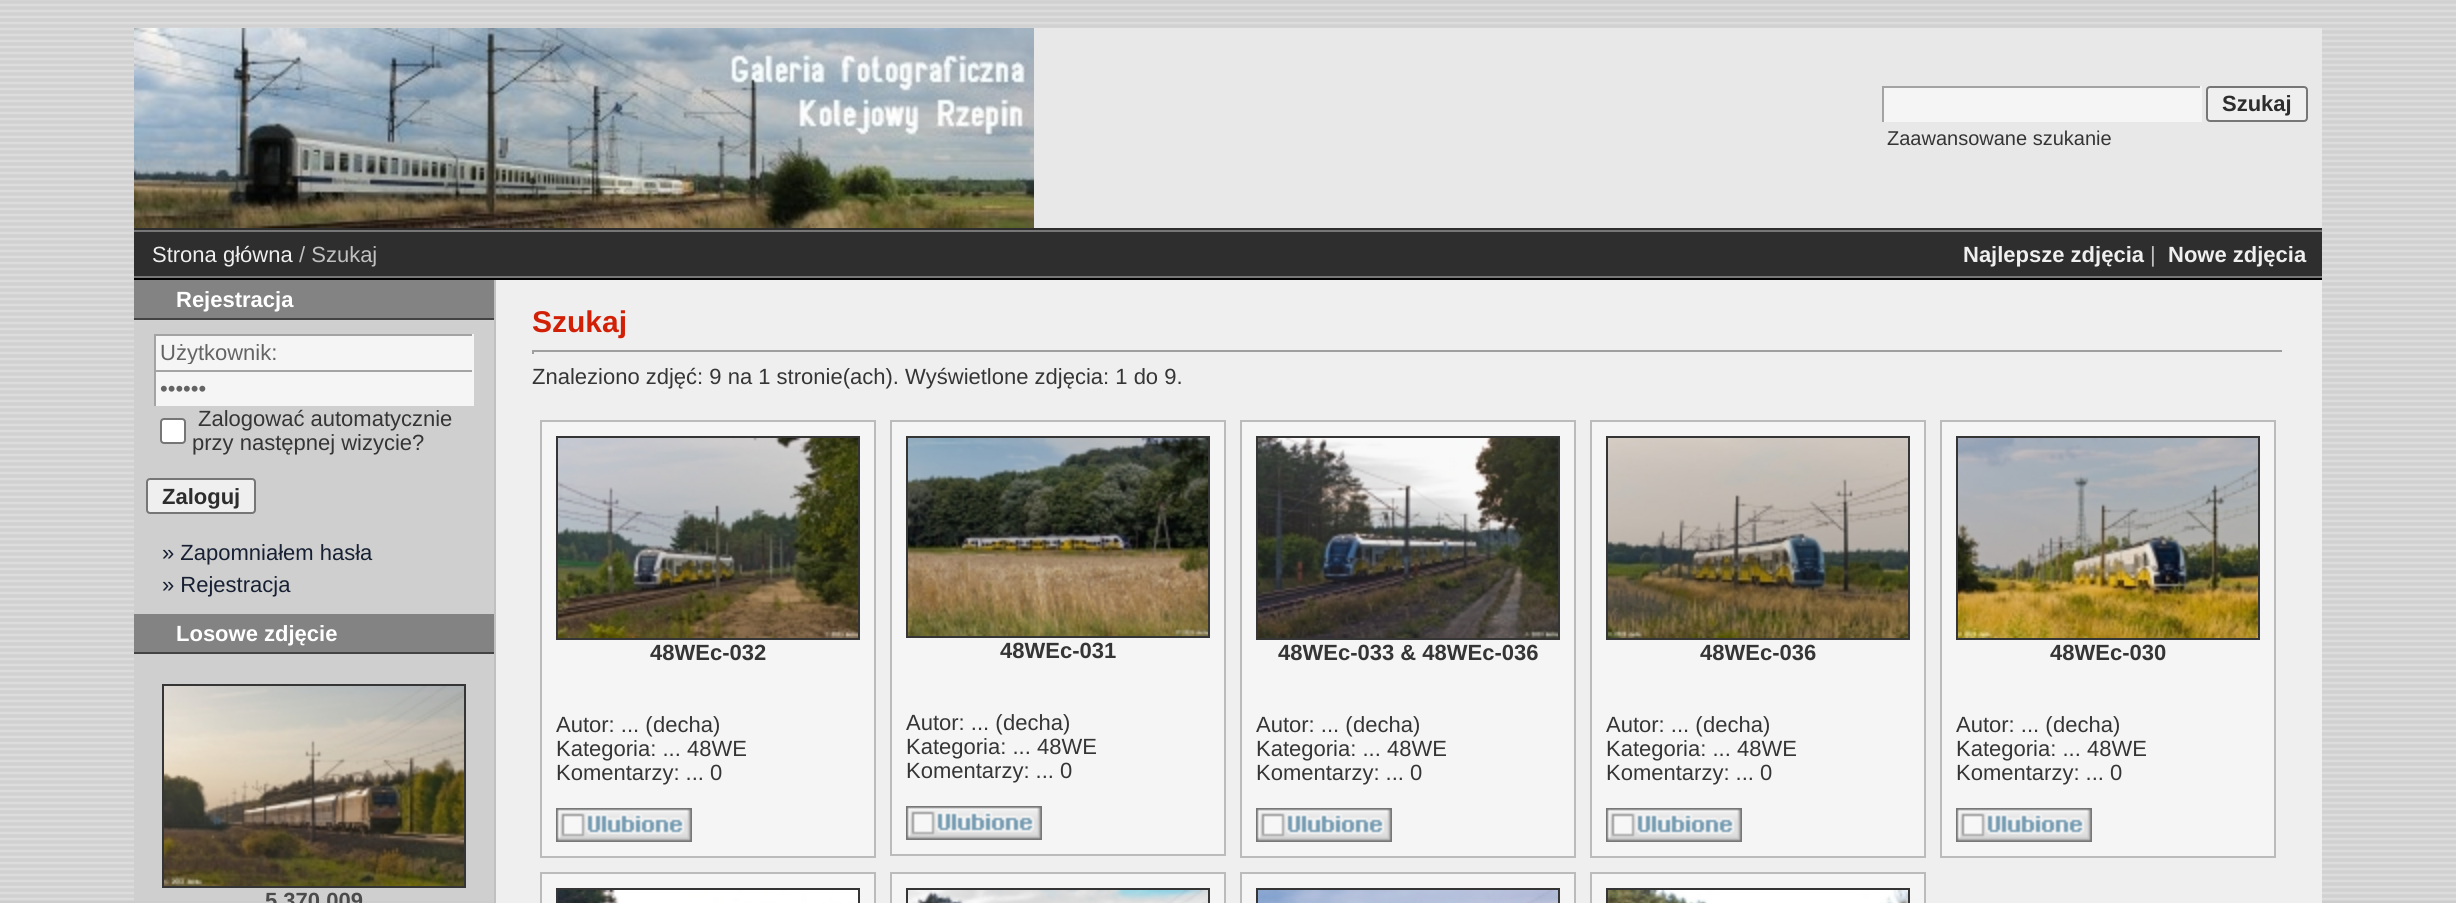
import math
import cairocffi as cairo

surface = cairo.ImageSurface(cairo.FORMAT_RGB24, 2456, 903)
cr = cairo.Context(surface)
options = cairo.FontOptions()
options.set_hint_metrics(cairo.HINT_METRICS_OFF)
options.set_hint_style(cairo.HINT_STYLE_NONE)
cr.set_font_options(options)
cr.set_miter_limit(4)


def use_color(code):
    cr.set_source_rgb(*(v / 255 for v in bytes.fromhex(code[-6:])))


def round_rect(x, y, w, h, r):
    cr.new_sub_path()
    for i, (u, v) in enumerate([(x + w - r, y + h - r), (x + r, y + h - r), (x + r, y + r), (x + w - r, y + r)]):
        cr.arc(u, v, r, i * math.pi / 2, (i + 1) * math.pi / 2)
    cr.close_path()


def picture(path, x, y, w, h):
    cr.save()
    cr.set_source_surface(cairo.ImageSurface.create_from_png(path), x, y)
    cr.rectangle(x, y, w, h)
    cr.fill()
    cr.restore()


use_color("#cdcdcd")
cr.paint()
picture("img1.png", 0, 0, 2456, 901)
use_color("#e8e8e8")
cr.rectangle(1034, 28, 1288, 200)
cr.fill()
use_color("#2d2d2d")
cr.rectangle(134, 228, 2188, 2)
cr.fill()
picture("img2.png", 134, 28, 900, 200)
use_color("#f5f5f5")
cr.rectangle(1884, 88, 316, 34)
cr.fill()
use_color("#a3a3a3")
cr.rectangle(1882, 86, 320, 2)
cr.fill()
use_color("#f5f5f5")
cr.rectangle(2200, 86, 2, 36)
cr.fill()
use_color("#a3a3a3")
cr.rectangle(1882, 86, 2, 36)
cr.fill()
use_color("#efefef")
round_rect(2207, 87, 100, 34, 3)
cr.fill_preserve()
use_color("#767676")
cr.stroke()
cr.select_font_face("Liberation Sans", cairo.FONT_SLANT_NORMAL, cairo.FONT_WEIGHT_BOLD)
cr.set_font_size(22)
use_color("#2d2d2d")
cr.move_to(2222, 111)
cr.show_text("Szukaj")
cr.select_font_face("Liberation Sans")
cr.set_font_size(20)
use_color("#353535")
cr.move_to(1887, 145)
cr.show_text("Zaawansowane szukanie")
use_color("#efefef")
cr.rectangle(496, 280, 1826, 623)
cr.fill()
use_color("#2e2e2e")
cr.rectangle(134, 232, 2188, 44)
cr.fill()
use_color("#777777")
cr.rectangle(134, 230, 2188, 2)
cr.fill()
cr.rectangle(134, 276, 2188, 2)
cr.fill()
cr.set_font_size(22)
use_color("#efefef")
cr.move_to(152, 262)
cr.show_text("Strona główna")
use_color("#c0c0c0")
cr.move_to(299, 262)
cr.show_text("/ Szukaj")
cr.select_font_face("Liberation Sans", cairo.FONT_SLANT_NORMAL, cairo.FONT_WEIGHT_BOLD)
use_color("#efefef")
cr.move_to(1963, 262)
cr.show_text("Najlepsze zdjęcia")
cr.select_font_face("Liberation Sans")
use_color("#c0c0c0")
cr.move_to(2150, 262)
cr.show_text("|")
cr.select_font_face("Liberation Sans", cairo.FONT_SLANT_NORMAL, cairo.FONT_WEIGHT_BOLD)
use_color("#efefef")
cr.move_to(2168, 262)
cr.show_text("Nowe zdjęcia")
use_color("#000000")
cr.rectangle(134, 278, 2188, 2)
cr.fill()
use_color("#cfcfcf")
cr.rectangle(134, 321, 360, 580)
cr.fill()
use_color("#838383")
cr.rectangle(134, 280, 360, 38)
cr.fill()
use_color("#434343")
cr.rectangle(134, 318, 360, 2)
cr.fill()
use_color("#ffffff")
cr.move_to(176, 307)
cr.show_text("Rejestracja")
use_color("#f5f5f5")
cr.rectangle(156, 336, 316, 34)
cr.fill()
use_color("#a3a3a3")
cr.rectangle(154, 334, 320, 2)
cr.fill()
use_color("#f5f5f5")
cr.rectangle(472, 334, 2, 36)
cr.fill()
use_color("#a3a3a3")
cr.rectangle(154, 334, 2, 36)
cr.fill()
cr.save()
cr.rectangle(160, 340, 308, 24)
cr.clip()
cr.select_font_face("Liberation Sans")
use_color("#646464")
cr.move_to(160, 360)
cr.show_text("Użytkownik:")
cr.restore()
use_color("#f5f5f5")
cr.rectangle(156, 372, 316, 34)
cr.fill()
use_color("#a3a3a3")
cr.rectangle(154, 370, 320, 2)
cr.fill()
use_color("#f5f5f5")
cr.rectangle(472, 370, 2, 36)
cr.fill()
use_color("#a3a3a3")
cr.rectangle(154, 370, 2, 36)
cr.fill()
cr.select_font_face("Liberation Sans")
use_color("#646464")
cr.move_to(160, 396)
cr.show_text("••••••")
use_color("#ffffff")
round_rect(161, 419, 24, 24, 3)
cr.fill_preserve()
use_color("#767676")
cr.stroke()
use_color("#353535")
cr.move_to(198, 426)
cr.show_text("Zalogować automatycznie")
cr.move_to(192, 450)
cr.show_text("przy następnej wizycie?")
use_color("#efefef")
round_rect(147, 479, 108, 34, 3)
cr.fill_preserve()
use_color("#767676")
cr.stroke()
cr.select_font_face("Liberation Sans", cairo.FONT_SLANT_NORMAL, cairo.FONT_WEIGHT_BOLD)
use_color("#2d2d2d")
cr.move_to(162, 504)
cr.show_text("Zaloguj")
cr.select_font_face("Liberation Sans")
use_color("#172033")
cr.move_to(162, 560)
cr.show_text("» Zapomniałem hasła")
cr.move_to(162, 592)
cr.show_text("» Rejestracja")
use_color("#838383")
cr.rectangle(134, 614, 360, 38)
cr.fill()
use_color("#434343")
cr.rectangle(134, 652, 360, 2)
cr.fill()
cr.select_font_face("Liberation Sans", cairo.FONT_SLANT_NORMAL, cairo.FONT_WEIGHT_BOLD)
use_color("#ffffff")
cr.move_to(176, 641)
cr.show_text("Losowe zdjęcie")
cr.rectangle(163, 685, 302, 202)
use_color("#353535")
cr.stroke()
picture("img3.png", 164, 686, 300, 200)
use_color("#4b4b4b")
cr.move_to(265, 908)
cr.show_text("5 370 009")
use_color("#c0c0c0")
cr.rectangle(494, 280, 2, 623)
cr.fill()
cr.set_font_size(30)
use_color("#d22006")
cr.move_to(532, 332)
cr.show_text("Szukaj")
use_color("#9f9f9f")
cr.rectangle(532, 350, 1752, 2)
cr.fill()
use_color("#eeeeee")
cr.rectangle(2282, 350, 2, 4)
cr.fill()
use_color("#9f9f9f")
cr.rectangle(532, 350, 2, 4)
cr.fill()
cr.select_font_face("Liberation Sans")
cr.set_font_size(22)
use_color("#353535")
cr.move_to(532, 384)
cr.show_text("Znaleziono zdjęć: 9 na 1 stronie(ach). Wyświetlone zdjęcia: 1 do 9.")
use_color("#f5f5f5")
cr.rectangle(541, 421, 334, 436)
cr.fill_preserve()
use_color("#bbbbbb")
cr.stroke()
cr.rectangle(557, 437, 302, 202)
use_color("#353535")
cr.stroke()
picture("img4.png", 558, 438, 300, 200)
cr.select_font_face("Liberation Sans", cairo.FONT_SLANT_NORMAL, cairo.FONT_WEIGHT_BOLD)
cr.move_to(650, 660)
cr.show_text("48WEc-032")
cr.select_font_face("Liberation Sans")
cr.move_to(556, 732)
cr.show_text("Autor: ... (")
cr.move_to(653, 732)
cr.show_text("decha")
cr.move_to(713, 732)
cr.show_text(")")
cr.move_to(556, 756)
cr.show_text("Kategoria: ...")
cr.move_to(687, 756)
cr.show_text("48WE")
cr.move_to(556, 780)
cr.show_text("Komentarzy: ... 0")
picture("img5.png", 556, 808, 136, 34)
use_color("#f5f5f5")
cr.rectangle(891, 421, 334, 434)
cr.fill_preserve()
use_color("#bbbbbb")
cr.stroke()
cr.rectangle(907, 437, 302, 200)
use_color("#353535")
cr.stroke()
picture("img6.png", 908, 438, 300, 198)
cr.select_font_face("Liberation Sans", cairo.FONT_SLANT_NORMAL, cairo.FONT_WEIGHT_BOLD)
cr.move_to(1000, 658)
cr.show_text("48WEc-031")
cr.select_font_face("Liberation Sans")
cr.move_to(906, 730)
cr.show_text("Autor: ... (")
cr.move_to(1003, 730)
cr.show_text("decha")
cr.move_to(1063, 730)
cr.show_text(")")
cr.move_to(906, 754)
cr.show_text("Kategoria: ...")
cr.move_to(1037, 754)
cr.show_text("48WE")
cr.move_to(906, 778)
cr.show_text("Komentarzy: ... 0")
picture("img5.png", 906, 806, 136, 34)
use_color("#f5f5f5")
cr.rectangle(1241, 421, 334, 436)
cr.fill_preserve()
use_color("#bbbbbb")
cr.stroke()
cr.rectangle(1257, 437, 302, 202)
use_color("#353535")
cr.stroke()
picture("img7.png", 1258, 438, 300, 200)
cr.select_font_face("Liberation Sans", cairo.FONT_SLANT_NORMAL, cairo.FONT_WEIGHT_BOLD)
cr.move_to(1278, 660)
cr.show_text("48WEc-033 & 48WEc-036")
cr.select_font_face("Liberation Sans")
cr.move_to(1256, 732)
cr.show_text("Autor: ... (")
cr.move_to(1353, 732)
cr.show_text("decha")
cr.move_to(1413, 732)
cr.show_text(")")
cr.move_to(1256, 756)
cr.show_text("Kategoria: ...")
cr.move_to(1387, 756)
cr.show_text("48WE")
cr.move_to(1256, 780)
cr.show_text("Komentarzy: ... 0")
picture("img5.png", 1256, 808, 136, 34)
use_color("#f5f5f5")
cr.rectangle(1591, 421, 334, 436)
cr.fill_preserve()
use_color("#bbbbbb")
cr.stroke()
cr.rectangle(1607, 437, 302, 202)
use_color("#353535")
cr.stroke()
picture("img8.png", 1608, 438, 300, 200)
cr.select_font_face("Liberation Sans", cairo.FONT_SLANT_NORMAL, cairo.FONT_WEIGHT_BOLD)
cr.move_to(1700, 660)
cr.show_text("48WEc-036")
cr.select_font_face("Liberation Sans")
cr.move_to(1606, 732)
cr.show_text("Autor: ... (")
cr.move_to(1703, 732)
cr.show_text("decha")
cr.move_to(1763, 732)
cr.show_text(")")
cr.move_to(1606, 756)
cr.show_text("Kategoria: ...")
cr.move_to(1737, 756)
cr.show_text("48WE")
cr.move_to(1606, 780)
cr.show_text("Komentarzy: ... 0")
picture("img5.png", 1606, 808, 136, 34)
use_color("#f5f5f5")
cr.rectangle(1941, 421, 334, 436)
cr.fill_preserve()
use_color("#bbbbbb")
cr.stroke()
cr.rectangle(1957, 437, 302, 202)
use_color("#353535")
cr.stroke()
picture("img9.png", 1958, 438, 300, 200)
cr.select_font_face("Liberation Sans", cairo.FONT_SLANT_NORMAL, cairo.FONT_WEIGHT_BOLD)
cr.move_to(2050, 660)
cr.show_text("48WEc-030")
cr.select_font_face("Liberation Sans")
cr.move_to(1956, 732)
cr.show_text("Autor: ... (")
cr.move_to(2053, 732)
cr.show_text("decha")
cr.move_to(2113, 732)
cr.show_text(")")
cr.move_to(1956, 756)
cr.show_text("Kategoria: ...")
cr.move_to(2087, 756)
cr.show_text("48WE")
cr.move_to(1956, 780)
cr.show_text("Komentarzy: ... 0")
picture("img5.png", 1956, 808, 136, 34)
use_color("#f5f5f5")
cr.rectangle(541, 873, 334, 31)
cr.fill_preserve()
use_color("#bbbbbb")
cr.stroke()
cr.rectangle(557, 889, 302, 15)
use_color("#353535")
cr.stroke()
picture("img10.png", 558, 890, 300, 13)
use_color("#f5f5f5")
cr.rectangle(891, 873, 334, 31)
cr.fill_preserve()
use_color("#bbbbbb")
cr.stroke()
cr.rectangle(907, 889, 302, 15)
use_color("#353535")
cr.stroke()
picture("img11.png", 908, 890, 300, 13)
use_color("#f5f5f5")
cr.rectangle(1241, 873, 334, 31)
cr.fill_preserve()
use_color("#bbbbbb")
cr.stroke()
cr.rectangle(1257, 889, 302, 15)
use_color("#353535")
cr.stroke()
picture("img12.png", 1258, 890, 300, 13)
use_color("#f5f5f5")
cr.rectangle(1591, 873, 334, 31)
cr.fill_preserve()
use_color("#bbbbbb")
cr.stroke()
cr.rectangle(1607, 889, 302, 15)
use_color("#353535")
cr.stroke()
picture("img13.png", 1608, 890, 300, 13)
surface.write_to_png("result.png")
